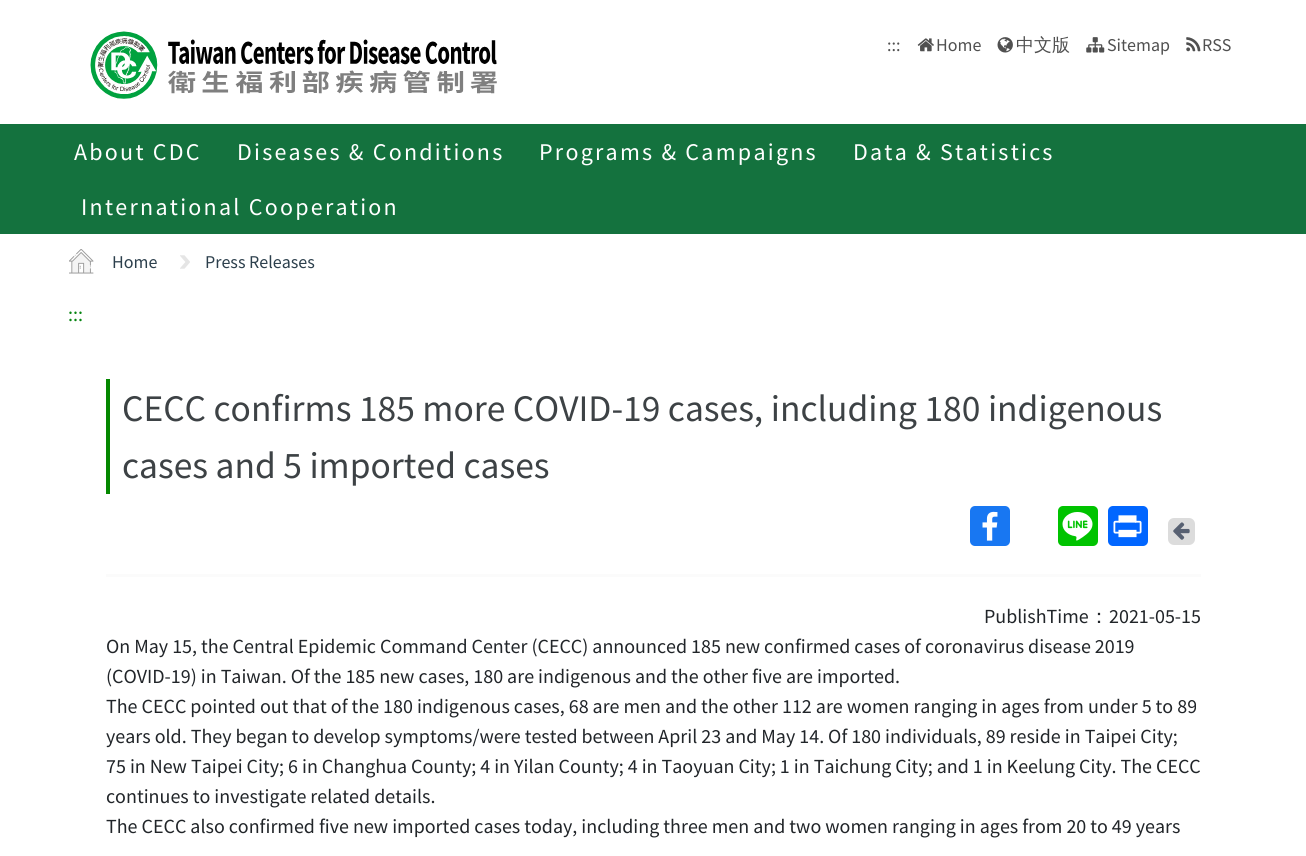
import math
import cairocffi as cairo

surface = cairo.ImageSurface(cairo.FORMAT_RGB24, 1306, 856)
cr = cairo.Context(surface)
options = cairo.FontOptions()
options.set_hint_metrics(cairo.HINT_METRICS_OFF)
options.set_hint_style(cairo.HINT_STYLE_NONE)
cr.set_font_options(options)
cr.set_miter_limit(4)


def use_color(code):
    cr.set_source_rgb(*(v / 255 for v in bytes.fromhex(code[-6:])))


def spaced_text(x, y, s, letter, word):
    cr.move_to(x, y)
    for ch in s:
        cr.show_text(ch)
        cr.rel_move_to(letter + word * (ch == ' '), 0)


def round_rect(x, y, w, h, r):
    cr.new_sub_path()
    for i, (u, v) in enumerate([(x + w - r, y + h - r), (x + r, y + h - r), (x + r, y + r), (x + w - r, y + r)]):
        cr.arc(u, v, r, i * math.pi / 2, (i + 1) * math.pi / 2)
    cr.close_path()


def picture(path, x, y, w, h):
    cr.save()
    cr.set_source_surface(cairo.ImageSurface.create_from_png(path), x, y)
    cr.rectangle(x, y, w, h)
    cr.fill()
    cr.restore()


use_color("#ffffff")
cr.paint()
picture("img1.png", 90, 31, 407, 68)
cr.select_font_face("Source Sans Pro")
cr.set_font_size(18)
use_color("#505050")
cr.move_to(887, 51)
cr.show_text(":::")
picture("img2.png", 917, 38, 17, 14)
cr.move_to(936, 51)
cr.show_text("Home")
picture("img3.png", 997, 37, 16, 16)
cr.select_font_face("WenQuanYi Zen Hei Medium")
cr.move_to(1016, 51)
cr.show_text("中文版")
picture("img4.png", 1086, 37, 19, 16)
cr.select_font_face("Source Sans Pro")
cr.move_to(1107, 51)
cr.show_text("Sitemap")
picture("img5.png", 1186, 37, 15, 15)
cr.move_to(1202, 51)
cr.show_text("RSS")
use_color("#14723e")
cr.rectangle(0, 124, 1306, 110)
cr.fill()
cr.set_font_size(24)
use_color("#ffffff")
spaced_text(74, 160, "About CDC", 2.25, 0)
spaced_text(237, 160, "Diseases & Conditions", 2.25, 0)
spaced_text(539, 160, "Programs & Campaigns", 2.25, 0)
spaced_text(853, 160, "Data & Statistics", 2.25, 0)
spaced_text(81, 215, "International Cooperation", 2.25, 0)
picture("img6.png", 69, 249, 25, 25)
cr.set_font_size(18)
use_color("#2c3f4c")
cr.move_to(112, 268)
cr.show_text("Home")
picture("img7.png", 180, 255, 10, 14)
cr.move_to(205, 268)
cr.show_text("Press Releases")
cr.set_font_size(20)
use_color("#068511")
cr.move_to(68, 321)
cr.show_text(":::")
use_color("#048800")
cr.rectangle(106, 379, 4, 115)
cr.fill()
cr.set_font_size(37.5)
use_color("#3d4245")
cr.move_to(122, 421)
cr.show_text("CECC confirms 185 more COVID-19 cases, including 180 indigenous")
cr.move_to(122, 478)
cr.show_text("cases and 5 imported cases")
use_color("#1877f2")
round_rect(970, 506, 40, 40, 5)
cr.fill()
picture("img8.png", 982, 511, 16, 30)
use_color("#00c300")
round_rect(1058, 506, 40, 40, 5)
cr.fill()
picture("img9.png", 1062, 512, 31, 29)
use_color("#0166ff")
round_rect(1108, 506, 40, 40, 5)
cr.fill()
picture("img10.png", 1113, 515, 29, 23)
use_color("#dcdcdc")
round_rect(1168, 518, 27, 27, 6)
cr.fill()
picture("img11.png", 1173, 522, 17, 18)
use_color("#fbfbfb")
cr.rectangle(106, 574, 1095, 3)
cr.fill()
cr.set_font_size(20)
use_color("#212529")
cr.move_to(984, 623)
cr.show_text("PublishTime")
cr.select_font_face("WenQuanYi Zen Hei Medium")
cr.move_to(1089, 623)
cr.show_text("：")
cr.select_font_face("Source Sans Pro")
cr.move_to(1109, 623)
cr.show_text("2021-05-15")
cr.move_to(106, 653)
cr.show_text("On May 15, the Central Epidemic Command Center (CECC) announced 185 new confirmed cases of coronavirus disease 2019")
cr.move_to(106, 683)
cr.show_text("(COVID-19) in Taiwan. Of the 185 new cases, 180 are indigenous and the other five are imported.")
cr.move_to(106, 713)
cr.show_text("The CECC pointed out that of the 180 indigenous cases, 68 are men and the other 112 are women ranging in ages from under 5 to 89")
cr.move_to(106, 743)
cr.show_text("years old. They began to develop symptoms/were tested between April 23 and May 14. Of 180 individuals, 89 reside in Taipei City;")
cr.move_to(106, 773)
cr.show_text("75 in New Taipei City; 6 in Changhua County; 4 in Yilan County; 4 in Taoyuan City; 1 in Taichung City; and 1 in Keelung City. The CECC")
cr.move_to(106, 803)
cr.show_text("continues to investigate related details.")
cr.move_to(106, 833)
cr.show_text("The CECC also confirmed five new imported cases today, including three men and two women ranging in ages from 20 to 49 years")
surface.write_to_png("result.png")
